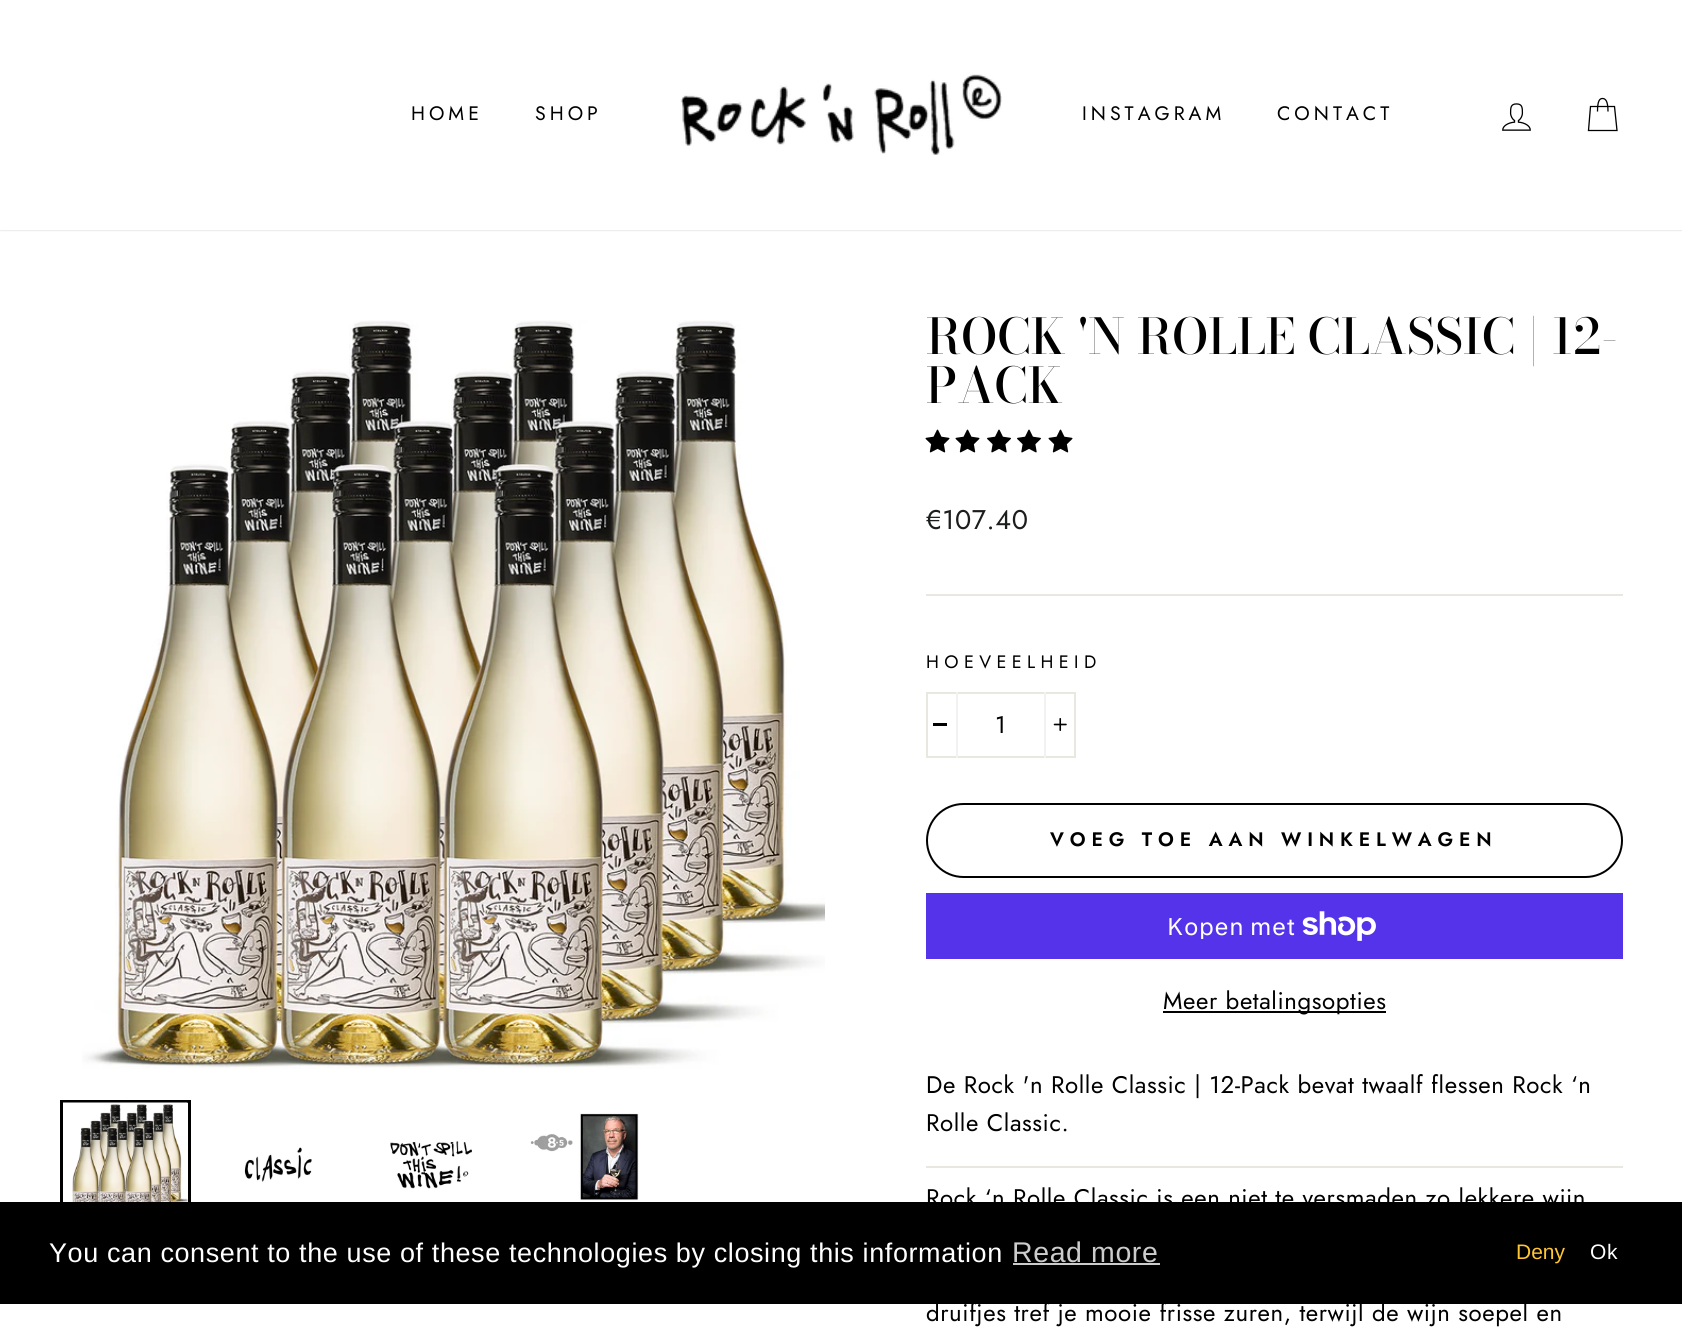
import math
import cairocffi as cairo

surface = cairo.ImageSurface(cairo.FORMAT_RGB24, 1682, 1330)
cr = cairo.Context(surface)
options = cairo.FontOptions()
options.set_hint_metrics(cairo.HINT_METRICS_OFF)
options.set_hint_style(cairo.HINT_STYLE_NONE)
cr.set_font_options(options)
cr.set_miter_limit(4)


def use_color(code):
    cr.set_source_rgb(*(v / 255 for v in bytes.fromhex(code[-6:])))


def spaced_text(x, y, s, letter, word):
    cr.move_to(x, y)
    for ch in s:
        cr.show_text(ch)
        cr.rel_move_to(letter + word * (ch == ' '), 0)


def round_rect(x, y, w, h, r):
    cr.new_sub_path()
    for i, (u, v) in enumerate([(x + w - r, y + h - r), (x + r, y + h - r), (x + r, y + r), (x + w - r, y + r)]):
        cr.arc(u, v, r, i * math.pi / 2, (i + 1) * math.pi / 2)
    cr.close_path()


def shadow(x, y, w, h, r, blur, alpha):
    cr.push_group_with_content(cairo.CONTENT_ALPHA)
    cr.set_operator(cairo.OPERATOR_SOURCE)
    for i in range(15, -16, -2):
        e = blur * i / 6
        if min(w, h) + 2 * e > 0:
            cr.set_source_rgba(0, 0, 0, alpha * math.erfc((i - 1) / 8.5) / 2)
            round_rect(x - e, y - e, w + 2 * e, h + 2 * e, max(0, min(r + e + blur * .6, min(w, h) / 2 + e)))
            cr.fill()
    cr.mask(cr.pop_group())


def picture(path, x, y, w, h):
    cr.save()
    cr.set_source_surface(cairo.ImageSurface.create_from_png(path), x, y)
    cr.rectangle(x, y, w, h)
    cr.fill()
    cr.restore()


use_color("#ffffff")
cr.paint()
use_color("#000000")
shadow(0, 0, 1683, 230, 0, 1, 0.2)
use_color("#ffffff")
cr.rectangle(0, 0, 1682, 230)
cr.fill()
cr.select_font_face("Jost")
cr.set_font_size(19.5)
use_color("#000000")
spaced_text(411, 120, "HOME", 4, 0)
spaced_text(535, 120, "SHOP", 4, 0)
picture("img1.png", 680, 74, 322, 81)
spaced_text(1082, 120, "INSTAGRAM", 4, 0)
spaced_text(1277, 120, "CONTACT", 4, 0)
picture("img2.png", 1502, 103, 29, 28)
cr.new_path()
cr.move_to(1597.5, 111.5)
cr.curve_to(1597.5, 101, 1599.5, 98.5, 1602.5, 98.5)
cr.curve_to(1605.5, 98.5, 1608, 101, 1608, 111.5)
cr.move_to(1590.5, 106.5)
cr.line_to(1614.5, 106.5)
cr.line_to(1617, 130.5)
cr.line_to(1588.5, 130.5)
cr.close_path()
cr.set_line_width(1.3)
cr.stroke()
picture("img3.png", 82, 320, 743, 749)
cr.rectangle(61.5, 1101.5, 128, 127)
cr.set_line_width(3)
cr.stroke()
picture("img4.png", 63, 1102, 125, 100)
picture("img5.png", 244, 1147, 68, 35)
picture("img6.png", 390, 1141, 82, 48)
picture("img7.png", 530, 1113, 109, 89)
cr.select_font_face("Bodoni Moda Medium")
cr.set_font_size(49)
cr.move_to(926, 354)
cr.show_text("ROCK 'N ROLLE CLASSIC | 12-")
cr.move_to(926, 403)
cr.show_text("PACK")
picture("img8.png", 925, 429, 25, 24)
picture("img8.png", 955, 429, 25, 24)
picture("img9.png", 987, 429, 24, 24)
picture("img9.png", 1017, 429, 24, 24)
picture("img8.png", 1048, 429, 25, 24)
cr.select_font_face("Jost")
cr.set_font_size(27)
use_color("#1c1d1d")
spaced_text(926, 529, "€107.40", 0.6, 0)
use_color("#e8e8e1")
cr.rectangle(926, 594, 697, 2)
cr.fill()
cr.set_font_size(18)
use_color("#000000")
spaced_text(926, 668, "HOEVEELHEID", 5.4, 0)
cr.rectangle(927, 693, 148, 64)
use_color("#e8e8e1")
cr.set_line_width(2)
cr.stroke()
use_color("#f2f2f2")
cr.rectangle(956, 692, 2, 66)
cr.fill()
use_color("#000000")
cr.rectangle(933, 723, 14, 3)
cr.fill()
cr.set_font_size(24)
spaced_text(995, 733, "1", 0.6, 0)
use_color("#f2f2f2")
cr.rectangle(1044, 692, 2, 66)
cr.fill()
picture("img10.png", 1053, 718, 14, 13)
round_rect(927, 804, 695, 73, 36.5)
use_color("#000000")
cr.stroke()
cr.select_font_face("Jost SemiBold")
cr.set_font_size(19.5)
spaced_text(1050, 846, "VOEG TOE AAN WINKELWAGEN", 5.85, 0)
use_color("#5433eb")
cr.rectangle(926, 893, 697, 66)
cr.fill()
cr.select_font_face("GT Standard")
cr.set_font_size(24)
use_color("#ffffff")
spaced_text(1167, 935, "Kopen met", 0.6, 0)
picture("img11.png", 1302, 911, 74, 30)
use_color("#000000")
cr.rectangle(1163, 1011, 223, 2)
cr.fill()
cr.select_font_face("Jost")
spaced_text(1163, 1009, "Meer betalingsopties", 0.6, 0)
spaced_text(926, 1093, "De Rock 'n Rolle Classic | 12-Pack bevat twaalf flessen Rock ‘n", 0.6, 0)
spaced_text(926, 1131, "Rolle Classic.", 0.6, 0)
use_color("#e8e8e1")
cr.rectangle(926, 1166, 697, 2)
cr.fill()
use_color("#000000")
spaced_text(926, 1206, "Rock ‘n Rolle Classic is een niet te versmaden zo lekkere wijn", 0.6, 0)
spaced_text(926, 1321, "druifjes tref je mooie frisse zuren, terwijl de wijn soepel en", 0.6, 0)
cr.rectangle(0, 1202, 1682, 102)
cr.fill()
cr.select_font_face("Liberation Sans")
cr.set_font_size(27)
use_color("#ffffff")
spaced_text(49, 1262, "You can consent to the use of these technologies by closing this information", 0.6, 0)
cr.set_font_size(28.5)
use_color("#cccccc")
spaced_text(1012, 1262, "Read more", 0.6, 0)
cr.rectangle(1013, 1263, 147, 2)
cr.fill()
cr.set_font_size(21)
use_color("#ffc533")
cr.move_to(1516, 1259)
cr.show_text("Deny")
use_color("#ffffff")
spaced_text(1590, 1259, "Ok", 0.6, 0)
surface.write_to_png("result.png")
